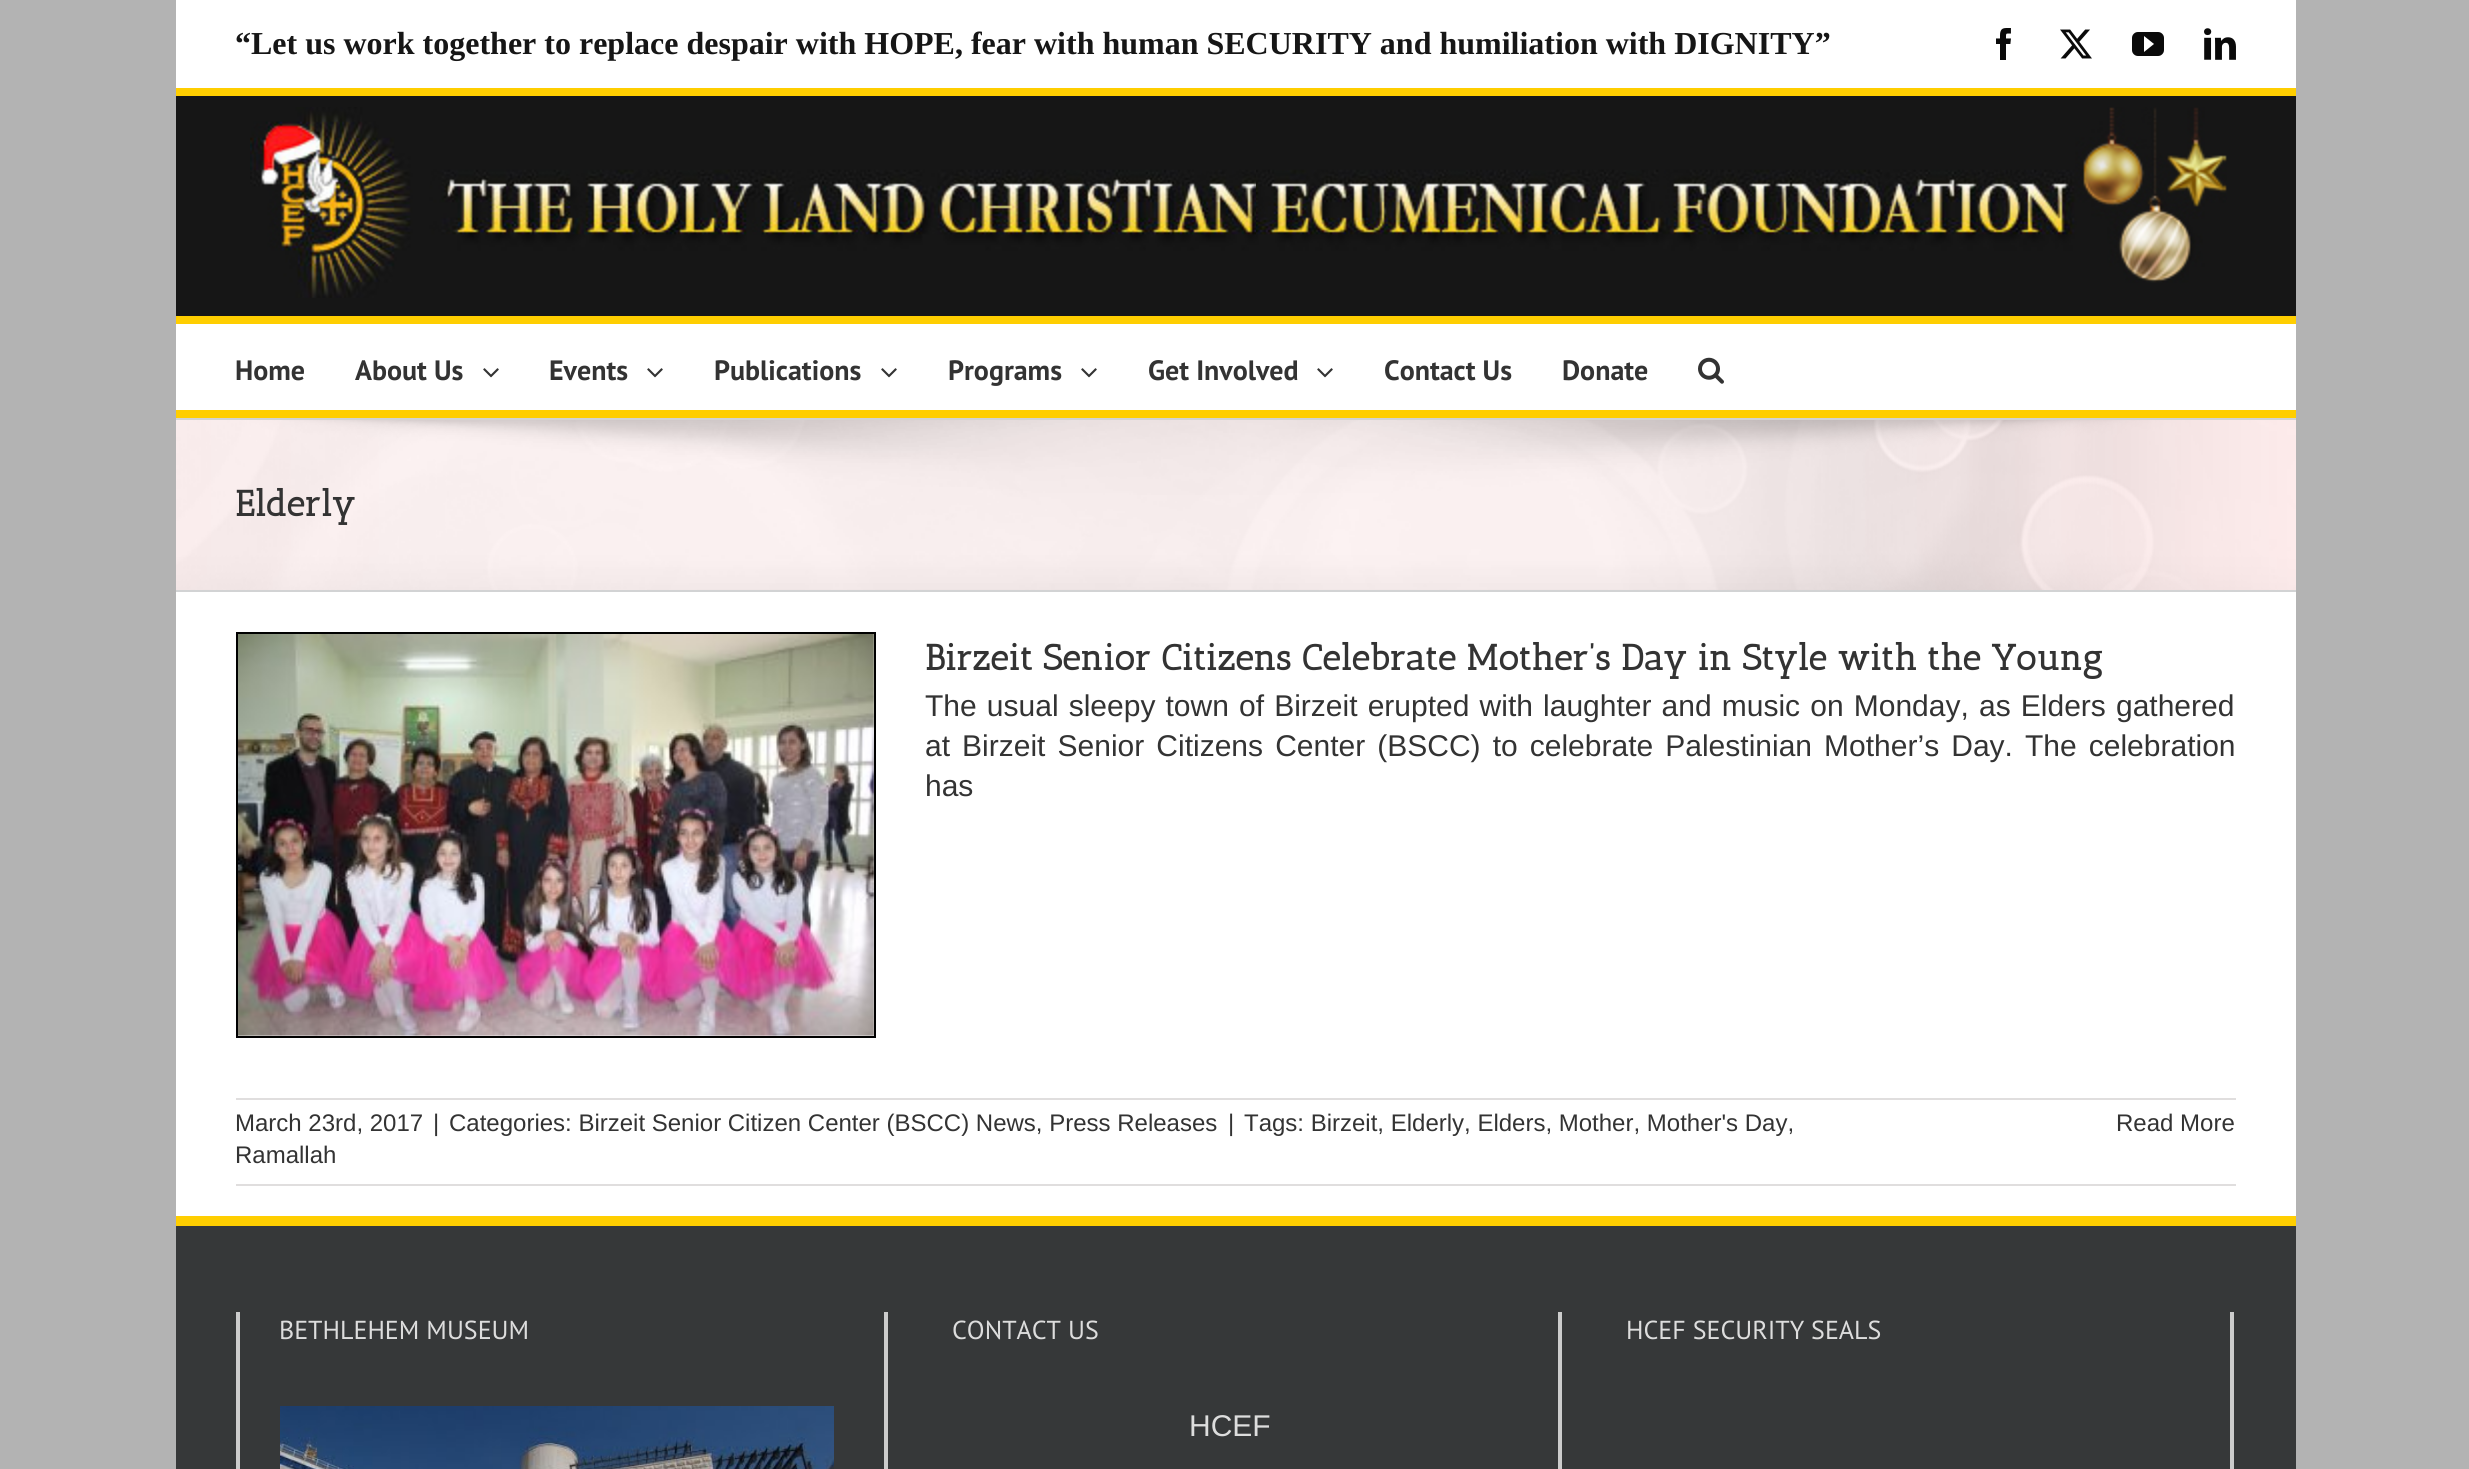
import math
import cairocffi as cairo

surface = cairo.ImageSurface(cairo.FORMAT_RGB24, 2469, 1469)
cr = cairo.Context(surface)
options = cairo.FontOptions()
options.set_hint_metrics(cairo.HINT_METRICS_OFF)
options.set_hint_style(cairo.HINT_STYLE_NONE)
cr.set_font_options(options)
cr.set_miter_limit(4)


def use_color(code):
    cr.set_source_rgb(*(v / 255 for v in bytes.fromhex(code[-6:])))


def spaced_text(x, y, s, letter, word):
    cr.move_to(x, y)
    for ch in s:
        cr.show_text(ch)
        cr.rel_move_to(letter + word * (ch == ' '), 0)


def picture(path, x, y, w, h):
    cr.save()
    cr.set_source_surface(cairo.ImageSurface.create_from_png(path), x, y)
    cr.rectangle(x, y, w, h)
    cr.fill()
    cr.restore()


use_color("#b3b3b3")
cr.paint()
use_color("#ffffff")
cr.rectangle(176, 0, 2120, 1216)
cr.fill()
cr.select_font_face("Liberation Serif", cairo.FONT_SLANT_NORMAL, cairo.FONT_WEIGHT_BOLD)
cr.set_font_size(32)
use_color("#161616")
cr.move_to(235, 54)
cr.show_text("“Let us work together to replace despair with HOPE, fear with human SECURITY and humiliation with DIGNITY”")
picture("img1.png", 1996, 28, 15, 32)
picture("img2.png", 2060, 29, 32, 30)
picture("img3.png", 2132, 32, 32, 24)
picture("img4.png", 2204, 28, 32, 32)
cr.rectangle(176, 96, 2120, 220)
cr.fill()
use_color("#ffce00")
cr.rectangle(176, 88, 2120, 8)
cr.fill()
cr.rectangle(176, 316, 2120, 8)
cr.fill()
picture("img5.png", 250, 107, 1977, 191)
cr.rectangle(176, 410, 2120, 8)
cr.fill()
cr.select_font_face("PT Sans", cairo.FONT_SLANT_NORMAL, cairo.FONT_WEIGHT_BOLD)
cr.set_font_size(28)
use_color("#333333")
cr.move_to(235, 380)
cr.show_text("Home")
cr.move_to(355, 380)
cr.show_text("About Us")
picture("img6.png", 483, 368, 16, 10)
cr.move_to(549, 380)
cr.show_text("Events")
picture("img6.png", 647, 368, 16, 10)
cr.move_to(714, 380)
cr.show_text("Publications")
picture("img6.png", 881, 368, 16, 10)
cr.move_to(948, 380)
cr.show_text("Programs")
picture("img6.png", 1081, 368, 16, 10)
cr.move_to(1148, 380)
cr.show_text("Get Involved")
picture("img6.png", 1317, 368, 16, 10)
cr.move_to(1384, 380)
cr.show_text("Contact Us")
cr.move_to(1562, 380)
cr.show_text("Donate")
picture("img7.png", 1698, 357, 26, 27)
use_color("#ffeded")
cr.rectangle(176, 420, 2120, 170)
cr.fill()
picture("img8.png", 176, 420, 2120, 170)
use_color("#d2d3d4")
cr.rectangle(176, 418, 2120, 2)
cr.fill()
cr.rectangle(176, 590, 2120, 2)
cr.fill()
cr.select_font_face("Antic Slab", cairo.FONT_SLANT_NORMAL, cairo.FONT_WEIGHT_BOLD)
cr.set_font_size(36)
use_color("#333333")
cr.move_to(235, 516)
cr.show_text("Elderly")
cr.rectangle(237, 633, 638, 404)
use_color("#000000")
cr.stroke()
picture("img9.png", 238, 634, 636, 402)
use_color("#333333")
cr.move_to(925, 670)
cr.show_text("Birzeit Senior Citizens Celebrate Mother’s Day in Style with the Young")
cr.select_font_face("Liberation Sans")
cr.set_font_size(30)
spaced_text(925, 716, "The usual sleepy town of Birzeit erupted with laughter and music on Monday, as Elders gathered", 0, 1.8)
spaced_text(925, 756, "at Birzeit Senior Citizens Center (BSCC) to celebrate Palestinian Mother’s Day. The celebration", 0, 3.75)
cr.move_to(925, 796)
cr.show_text("has")
use_color("#e0dede")
cr.rectangle(236, 1098, 2000, 2)
cr.fill()
cr.rectangle(236, 1184, 2000, 2)
cr.fill()
cr.set_font_size(24)
use_color("#333333")
cr.move_to(235, 1131)
cr.show_text("March 23rd, 2017")
cr.move_to(433, 1131)
cr.show_text("|")
cr.move_to(449, 1131)
cr.show_text("Categories: Birzeit Senior Citizen Center (BSCC) News, Press Releases")
cr.move_to(1228, 1131)
cr.show_text("|")
cr.move_to(1244, 1131)
cr.show_text("Tags: Birzeit, Elderly, Elders, Mother, Mother's Day,")
cr.move_to(235, 1163)
cr.show_text("Ramallah")
cr.move_to(2116, 1131)
cr.show_text("Read More")
use_color("#363839")
cr.rectangle(176, 1226, 2120, 243)
cr.fill()
use_color("#ffce00")
cr.rectangle(176, 1216, 2120, 10)
cr.fill()
use_color("#cccccc")
cr.rectangle(236, 1312, 4, 157)
cr.fill()
cr.rectangle(884, 1312, 4, 157)
cr.fill()
cr.select_font_face("PT Sans")
cr.set_font_size(26)
use_color("#dddddd")
cr.move_to(279, 1339)
cr.show_text("BETHLEHEM MUSEUM")
picture("img10.png", 280, 1406, 554, 63)
use_color("#cccccc")
cr.rectangle(1558, 1312, 4, 157)
cr.fill()
use_color("#dddddd")
cr.move_to(952, 1339)
cr.show_text("CONTACT US")
cr.select_font_face("Liberation Sans")
cr.set_font_size(30)
cr.move_to(1189, 1436)
cr.show_text("HCEF")
use_color("#cccccc")
cr.rectangle(2230, 1312, 4, 157)
cr.fill()
cr.select_font_face("PT Sans")
cr.set_font_size(26)
use_color("#dddddd")
cr.move_to(1626, 1339)
cr.show_text("HCEF SECURITY SEALS")
surface.write_to_png("result.png")
